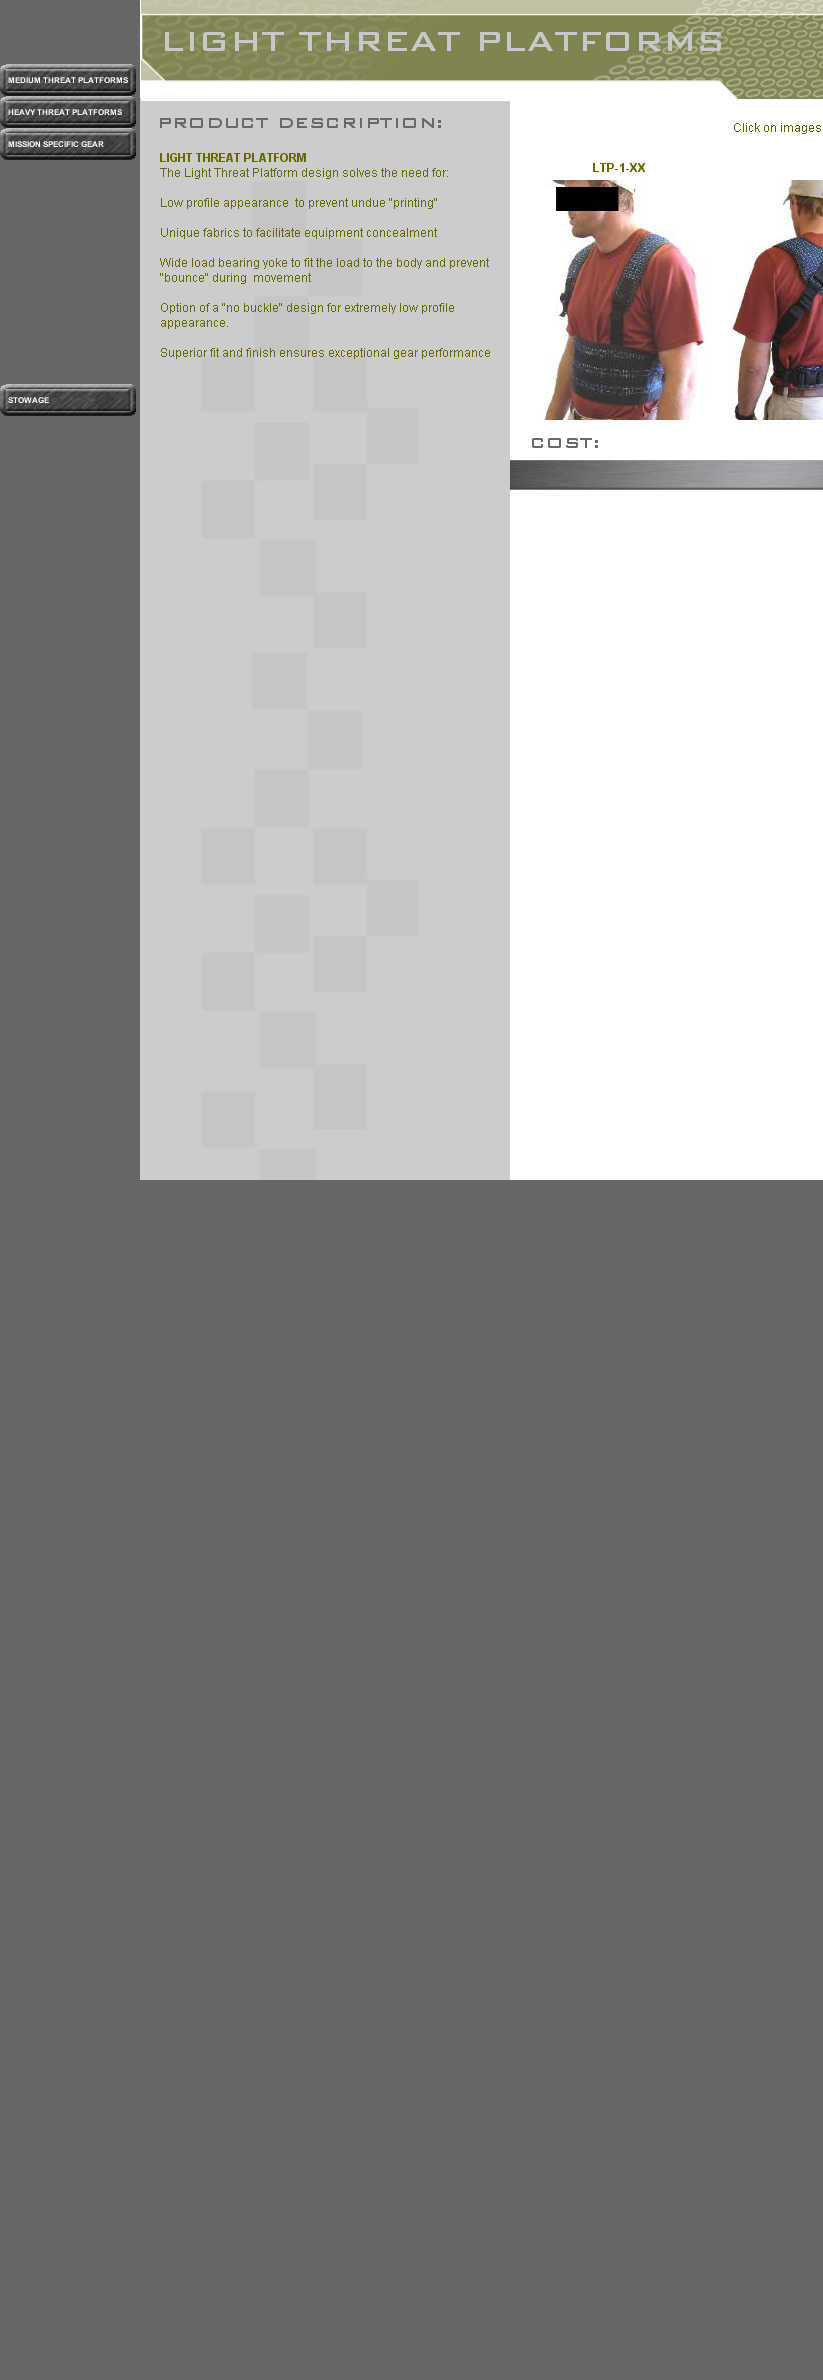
import math
import cairocffi as cairo

surface = cairo.ImageSurface(cairo.FORMAT_RGB24, 823, 2380)
cr = cairo.Context(surface)
options = cairo.FontOptions()
options.set_hint_metrics(cairo.HINT_METRICS_OFF)
options.set_hint_style(cairo.HINT_STYLE_NONE)
cr.set_font_options(options)
cr.set_miter_limit(4)


def use_color(code):
    cr.set_source_rgb(*(v / 255 for v in bytes.fromhex(code[-6:])))


def picture(path, x, y, w, h):
    cr.save()
    cr.set_source_surface(cairo.ImageSurface.create_from_png(path), x, y)
    cr.rectangle(x, y, w, h)
    cr.fill()
    cr.restore()


use_color("#666666")
cr.paint()
use_color("#ffffff")
cr.rectangle(140, 0, 683, 1180)
cr.fill()
picture("img7.png", 140, 98, 370, 1082)
picture("img1.png", 141, 0, 682, 101)
picture("img2.png", 165, 32, 556, 19)
picture("img3.png", 0, 64, 136, 32)
picture("img4.png", 0, 96, 136, 32)
picture("img5.png", 0, 128, 136, 32)
picture("img6.png", 0, 384, 136, 32)
picture("img8.png", 160, 118, 281, 10)
picture("img9.png", 734, 123, 87, 11)
picture("img10.png", 160, 153, 330, 206)
picture("img11.png", 593, 163, 53, 9)
picture("img12.png", 538, 180, 168, 240)
picture("img13.png", 730, 180, 93, 240)
picture("img14.png", 532, 438, 66, 10)
picture("img15.png", 510, 460, 313, 30)
surface.write_to_png("result.png")
